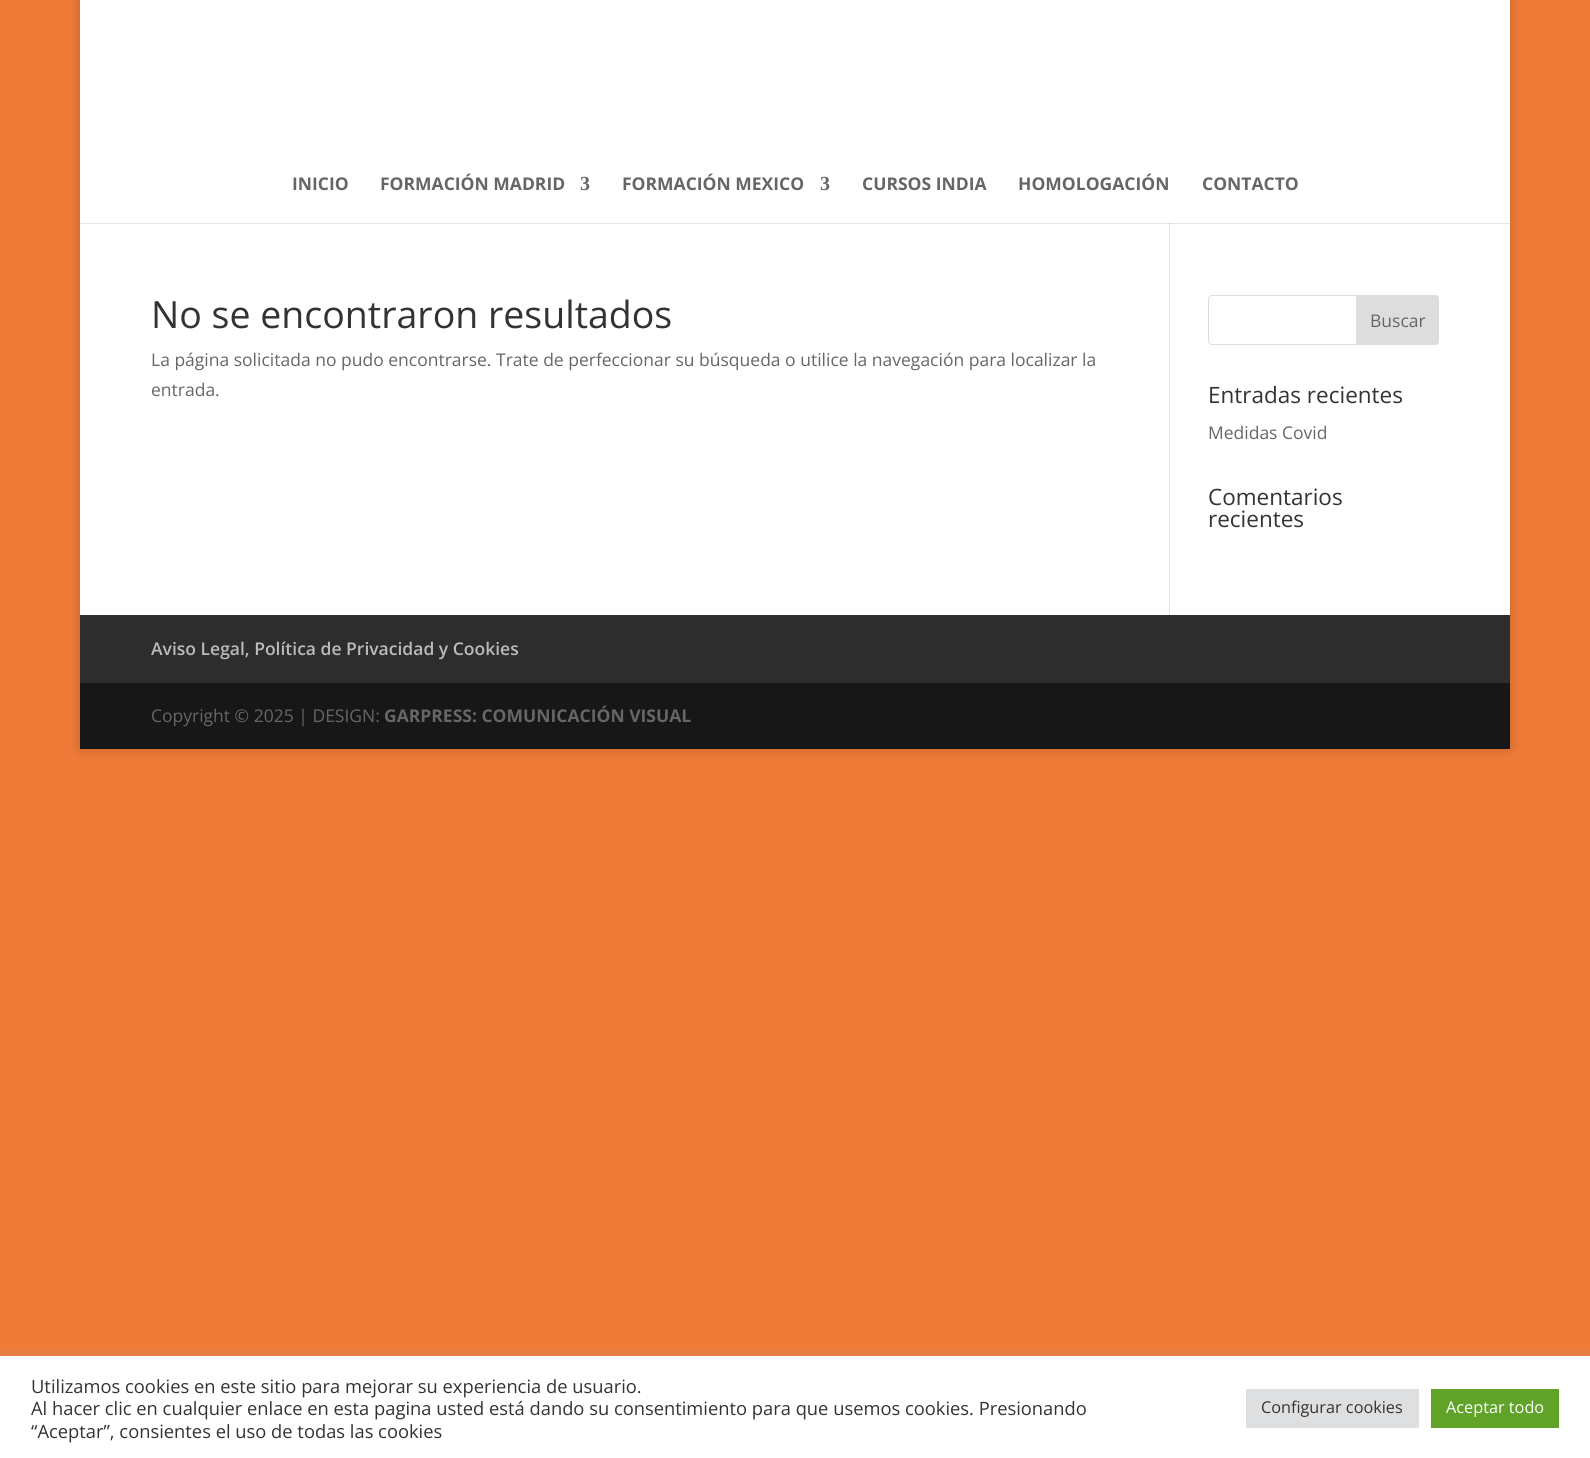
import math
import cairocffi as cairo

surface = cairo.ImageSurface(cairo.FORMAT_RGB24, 1590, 1458)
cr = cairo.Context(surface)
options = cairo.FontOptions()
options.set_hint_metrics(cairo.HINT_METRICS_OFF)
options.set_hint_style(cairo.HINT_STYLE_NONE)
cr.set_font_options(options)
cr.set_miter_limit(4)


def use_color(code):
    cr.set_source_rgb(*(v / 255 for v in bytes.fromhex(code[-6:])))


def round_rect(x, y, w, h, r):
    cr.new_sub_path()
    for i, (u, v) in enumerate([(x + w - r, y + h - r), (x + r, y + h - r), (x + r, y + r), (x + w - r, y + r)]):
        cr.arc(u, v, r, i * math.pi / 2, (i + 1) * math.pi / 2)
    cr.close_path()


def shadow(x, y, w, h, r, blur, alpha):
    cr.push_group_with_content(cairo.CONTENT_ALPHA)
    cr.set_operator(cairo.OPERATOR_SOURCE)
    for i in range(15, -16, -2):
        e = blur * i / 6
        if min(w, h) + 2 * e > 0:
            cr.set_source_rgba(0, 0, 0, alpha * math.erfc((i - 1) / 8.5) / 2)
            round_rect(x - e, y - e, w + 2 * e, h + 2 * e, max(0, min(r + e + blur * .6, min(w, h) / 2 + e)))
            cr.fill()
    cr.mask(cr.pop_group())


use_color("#ef7a37")
cr.paint()
use_color("#000000")
shadow(80, 0, 1430, 749, 0, 6, 0.2)
use_color("#ffffff")
cr.rectangle(80, 0, 1430, 223)
cr.fill()
cr.select_font_face("Open Sans", cairo.FONT_SLANT_NORMAL, cairo.FONT_WEIGHT_BOLD)
cr.set_font_size(17.5)
use_color("#666666")
cr.move_to(292, 190)
cr.show_text("INICIO")
cr.move_to(380, 190)
cr.show_text("FORMACIÓN MADRID")
cr.select_font_face("Liberation Serif", cairo.FONT_SLANT_NORMAL, cairo.FONT_WEIGHT_BOLD)
cr.set_font_size(20)
cr.move_to(580, 190)
cr.show_text("3")
cr.select_font_face("Open Sans", cairo.FONT_SLANT_NORMAL, cairo.FONT_WEIGHT_BOLD)
cr.set_font_size(17.5)
cr.move_to(622, 190)
cr.show_text("FORMACIÓN MEXICO")
cr.select_font_face("Liberation Serif", cairo.FONT_SLANT_NORMAL, cairo.FONT_WEIGHT_BOLD)
cr.set_font_size(20)
cr.move_to(820, 190)
cr.show_text("3")
cr.select_font_face("Open Sans", cairo.FONT_SLANT_NORMAL, cairo.FONT_WEIGHT_BOLD)
cr.set_font_size(17.5)
cr.move_to(862, 190)
cr.show_text("CURSOS INDIA")
cr.move_to(1018, 190)
cr.show_text("HOMOLOGACIÓN")
cr.move_to(1202, 190)
cr.show_text("CONTACTO")
use_color("#ffffff")
cr.rectangle(80, 224, 1430, 391)
cr.fill()
use_color("#e6e6e6")
cr.rectangle(80, 223, 1430, 1)
cr.fill()
use_color("#e2e2e2")
cr.rectangle(1169, 223, 1, 392)
cr.fill()
use_color("#cbcbcb")
cr.rectangle(1169, 223, 1, 1)
cr.fill()
cr.select_font_face("Open Sans")
cr.set_font_size(37.5)
use_color("#333333")
cr.move_to(151, 328)
cr.show_text("No se encontraron resultados")
cr.set_font_size(17.5)
use_color("#666666")
cr.move_to(151, 366)
cr.show_text("La página solicitada no pudo encontrarse. Trate de perfeccionar su búsqueda o utilice la navegación para localizar la")
cr.move_to(151, 396)
cr.show_text("entrada.")
round_rect(1208.5, 295.5, 230, 49, 3.5)
use_color("#dddddd")
cr.set_line_width(1)
cr.stroke()
cr.new_path()
cr.move_to(1356.5, 295.5)
cr.line_to(1435, 295.5)
cr.curve_to(1437, 295.5, 1438.5, 297, 1438.5, 299)
cr.line_to(1438.5, 341)
cr.curve_to(1438.5, 343, 1437, 344.5, 1435, 344.5)
cr.line_to(1356.5, 344.5)
cr.close_path()
cr.fill_preserve()
cr.stroke()
use_color("#666666")
cr.move_to(1370, 327)
cr.show_text("Buscar")
cr.set_font_size(22.5)
use_color("#333333")
cr.move_to(1208, 403)
cr.show_text("Entradas recientes")
cr.set_font_size(17.5)
use_color("#666666")
cr.move_to(1208, 439)
cr.show_text("Medidas Covid")
cr.set_font_size(22.5)
use_color("#333333")
cr.move_to(1208, 505)
cr.show_text("Comentarios")
cr.move_to(1208, 527)
cr.show_text("recientes")
use_color("#2d2d2d")
cr.rectangle(80, 615, 1430, 68)
cr.fill()
cr.select_font_face("Open Sans SemiBold")
cr.set_font_size(17.5)
use_color("#bbbbbb")
cr.move_to(151, 655)
cr.show_text("Aviso Legal, Política de Privacidad y Cookies")
use_color("#171717")
cr.rectangle(80, 683, 1430, 66)
cr.fill()
cr.select_font_face("Open Sans")
use_color("#666666")
cr.move_to(151, 722)
cr.show_text("Copyright © 2025 | DESIGN:")
cr.select_font_face("Open Sans", cairo.FONT_SLANT_NORMAL, cairo.FONT_WEIGHT_BOLD)
cr.move_to(384, 722)
cr.show_text("GARPRESS: COMUNICACIÓN VISUAL")
use_color("#acabab")
shadow(0, 1355, 1590, 103, 0, 6, 0.3)
use_color("#ffffff")
cr.rectangle(0, 1356, 1590, 102)
cr.fill()
cr.select_font_face("Open Sans")
cr.set_font_size(18.33)
use_color("#333333")
cr.move_to(31, 1393)
cr.show_text("Utilizamos cookies en este sitio para mejorar su experiencia de usuario.")
cr.move_to(31, 1415)
cr.show_text("Al hacer clic en cualquier enlace en esta pagina usted está dando su consentimiento para que usemos cookies. Presionando")
cr.move_to(31, 1438)
cr.show_text("“Aceptar”, consientes el uso de todas las cookies")
use_color("#dedfe0")
cr.rectangle(1246, 1389, 173, 39)
cr.fill()
cr.set_font_size(16.25)
use_color("#333333")
cr.move_to(1261, 1413)
cr.show_text("Configurar cookies")
use_color("#61a229")
cr.rectangle(1431, 1389, 128, 39)
cr.fill()
use_color("#ffffff")
cr.move_to(1446, 1413)
cr.show_text("Aceptar todo")
surface.write_to_png("result.png")
